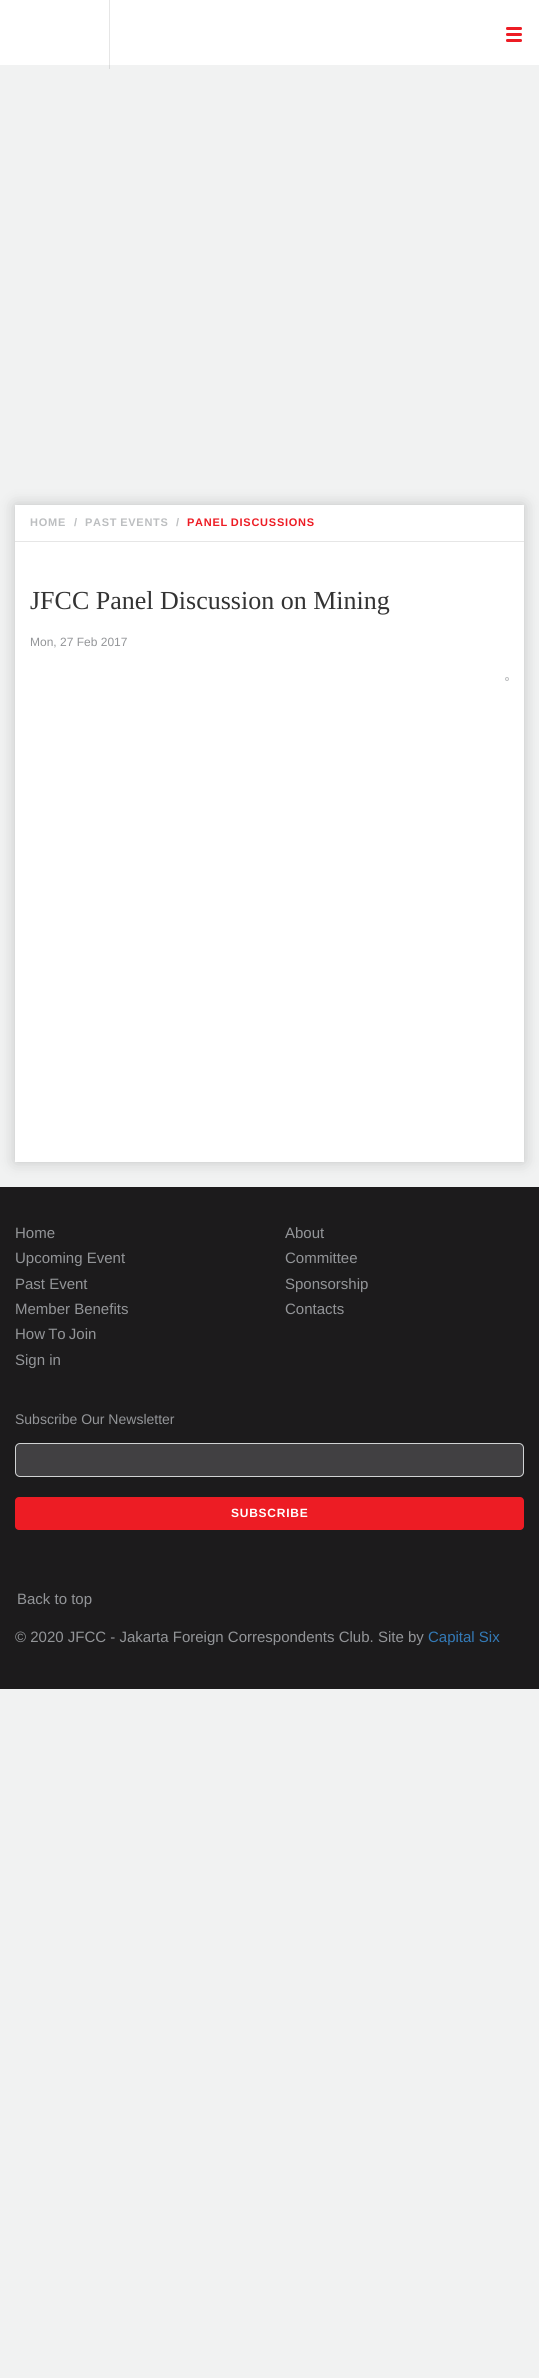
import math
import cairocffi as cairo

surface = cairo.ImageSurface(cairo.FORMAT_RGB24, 539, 2378)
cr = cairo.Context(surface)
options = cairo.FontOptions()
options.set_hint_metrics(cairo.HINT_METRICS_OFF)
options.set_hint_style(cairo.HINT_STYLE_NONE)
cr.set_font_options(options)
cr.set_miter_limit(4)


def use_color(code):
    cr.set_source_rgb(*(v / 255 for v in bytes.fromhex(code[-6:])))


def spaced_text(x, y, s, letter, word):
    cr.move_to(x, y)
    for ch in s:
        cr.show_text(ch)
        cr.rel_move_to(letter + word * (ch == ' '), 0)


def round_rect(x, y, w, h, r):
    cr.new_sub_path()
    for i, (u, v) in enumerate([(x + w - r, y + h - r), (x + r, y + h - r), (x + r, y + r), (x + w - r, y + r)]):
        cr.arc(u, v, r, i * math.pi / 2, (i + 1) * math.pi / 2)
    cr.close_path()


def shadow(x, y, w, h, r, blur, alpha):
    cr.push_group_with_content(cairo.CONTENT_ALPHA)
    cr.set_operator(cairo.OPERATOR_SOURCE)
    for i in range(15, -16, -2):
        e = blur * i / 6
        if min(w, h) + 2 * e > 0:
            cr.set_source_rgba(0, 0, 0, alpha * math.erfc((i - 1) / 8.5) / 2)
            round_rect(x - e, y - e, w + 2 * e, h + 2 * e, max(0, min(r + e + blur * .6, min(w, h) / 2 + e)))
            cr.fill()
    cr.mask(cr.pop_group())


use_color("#f1f2f2")
cr.paint()
use_color("#d9dada")
cr.rectangle(109, 65, 1, 4)
cr.fill()
use_color("#ffffff")
cr.rectangle(0, 0, 539, 65)
cr.fill()
use_color("#e6e6e6")
cr.rectangle(109, 0, 1, 65)
cr.fill()
use_color("#ed1c24")
cr.new_path()
cr.move_to(507.5, 27)
cr.line_to(514, 27)
cr.line_to(514, 30)
cr.line_to(507.5, 30)
cr.curve_to(506.5, 30, 506, 29.5, 506, 28.5)
cr.curve_to(506, 27.5, 506.5, 27, 507.5, 27)
cr.close_path()
cr.fill()
cr.new_path()
cr.move_to(514, 27)
cr.line_to(520.5, 27)
cr.curve_to(521.5, 27, 522, 27.5, 522, 28.5)
cr.curve_to(522, 29.5, 521.5, 30, 520.5, 30)
cr.line_to(514, 30)
cr.close_path()
cr.fill()
cr.new_path()
cr.move_to(507.5, 33)
cr.line_to(514, 33)
cr.line_to(514, 36)
cr.line_to(507.5, 36)
cr.curve_to(506.5, 36, 506, 35.5, 506, 34.5)
cr.curve_to(506, 33.5, 506.5, 33, 507.5, 33)
cr.close_path()
cr.fill()
cr.new_path()
cr.move_to(514, 33)
cr.line_to(520.5, 33)
cr.curve_to(521.5, 33, 522, 33.5, 522, 34.5)
cr.curve_to(522, 35.5, 521.5, 36, 520.5, 36)
cr.line_to(514, 36)
cr.close_path()
cr.fill()
cr.new_path()
cr.move_to(507.5, 39)
cr.line_to(514, 39)
cr.line_to(514, 42)
cr.line_to(507.5, 42)
cr.curve_to(506.5, 42, 506, 41.5, 506, 40.5)
cr.curve_to(506, 39.5, 506.5, 39, 507.5, 39)
cr.close_path()
cr.fill()
cr.new_path()
cr.move_to(514, 39)
cr.line_to(520.5, 39)
cr.curve_to(521.5, 39, 522, 39.5, 522, 40.5)
cr.curve_to(522, 41.5, 521.5, 42, 520.5, 42)
cr.line_to(514, 42)
cr.close_path()
cr.fill()
use_color("#000000")
shadow(15, 505, 509, 657, 0, 7.5, 0.2)
use_color("#ffffff")
cr.rectangle(15, 505, 509, 657)
cr.fill()
use_color("#e6e6e6")
cr.rectangle(15, 541, 509, 1)
cr.fill()
cr.select_font_face("Liberation Sans", cairo.FONT_SLANT_NORMAL, cairo.FONT_WEIGHT_BOLD)
cr.set_font_size(11)
use_color("#bcbec0")
spaced_text(30, 526, "HOME", 0.75, 0)
cr.move_to(74, 526)
cr.show_text("/")
spaced_text(85, 526, "PAST EVENTS", 0.75, -1)
cr.move_to(176, 526)
cr.show_text("/")
use_color("#ed1c24")
spaced_text(187, 526, "PANEL DISCUSSIONS", 0.75, -1)
cr.select_font_face("Liberation Serif")
cr.set_font_size(26)
use_color("#333333")
cr.move_to(30, 609)
cr.show_text("JFCC Panel Discussion on Mining")
cr.select_font_face("Liberation Sans")
cr.set_font_size(12)
use_color("#939598")
cr.move_to(30, 646)
cr.show_text("Mon, 27 Feb 2017")
cr.new_path()
cr.arc(507, 679, 1.5, 0, 2 * math.pi)
use_color("#bcbec0")
cr.set_line_width(1)
cr.stroke()
use_color("#1c1b1c")
cr.rectangle(0, 1187, 539, 502)
cr.fill()
cr.set_font_size(15)
use_color("#939598")
cr.move_to(15, 1238)
cr.show_text("Home")
cr.move_to(15, 1263)
cr.show_text("Upcoming Event")
cr.move_to(15, 1289)
cr.show_text("Past Event")
cr.move_to(15, 1314)
cr.show_text("Member Benefits")
spaced_text(15, 1339, "How To Join", 0, -1)
cr.move_to(15, 1365)
cr.show_text("Sign in")
cr.move_to(285, 1238)
cr.show_text("About")
cr.move_to(285, 1263)
cr.show_text("Committee")
cr.move_to(285, 1289)
cr.show_text("Sponsorship")
cr.move_to(285, 1314)
cr.show_text("Contacts")
cr.set_font_size(14)
cr.move_to(15, 1424)
cr.show_text("Subscribe Our Newsletter")
use_color("#414042")
round_rect(15.5, 1443.5, 508, 33, 4.5)
cr.fill_preserve()
use_color("#d1d3d4")
cr.stroke()
use_color("#ed1c24")
round_rect(15, 1497, 509, 33, 4)
cr.fill()
cr.select_font_face("Liberation Sans", cairo.FONT_SLANT_NORMAL, cairo.FONT_WEIGHT_BOLD)
cr.set_font_size(12)
use_color("#ffffff")
spaced_text(231, 1517, "SUBSCRIBE", 0.75, 0)
cr.select_font_face("Liberation Sans")
cr.set_font_size(15)
use_color("#939598")
cr.move_to(17, 1604)
cr.show_text("Back to top")
cr.move_to(15, 1642)
cr.show_text("© 2020 JFCC - Jakarta Foreign Correspondents Club. Site by")
use_color("#337ab7")
cr.move_to(428, 1642)
cr.show_text("Capital Six")
surface.write_to_png("result.png")
